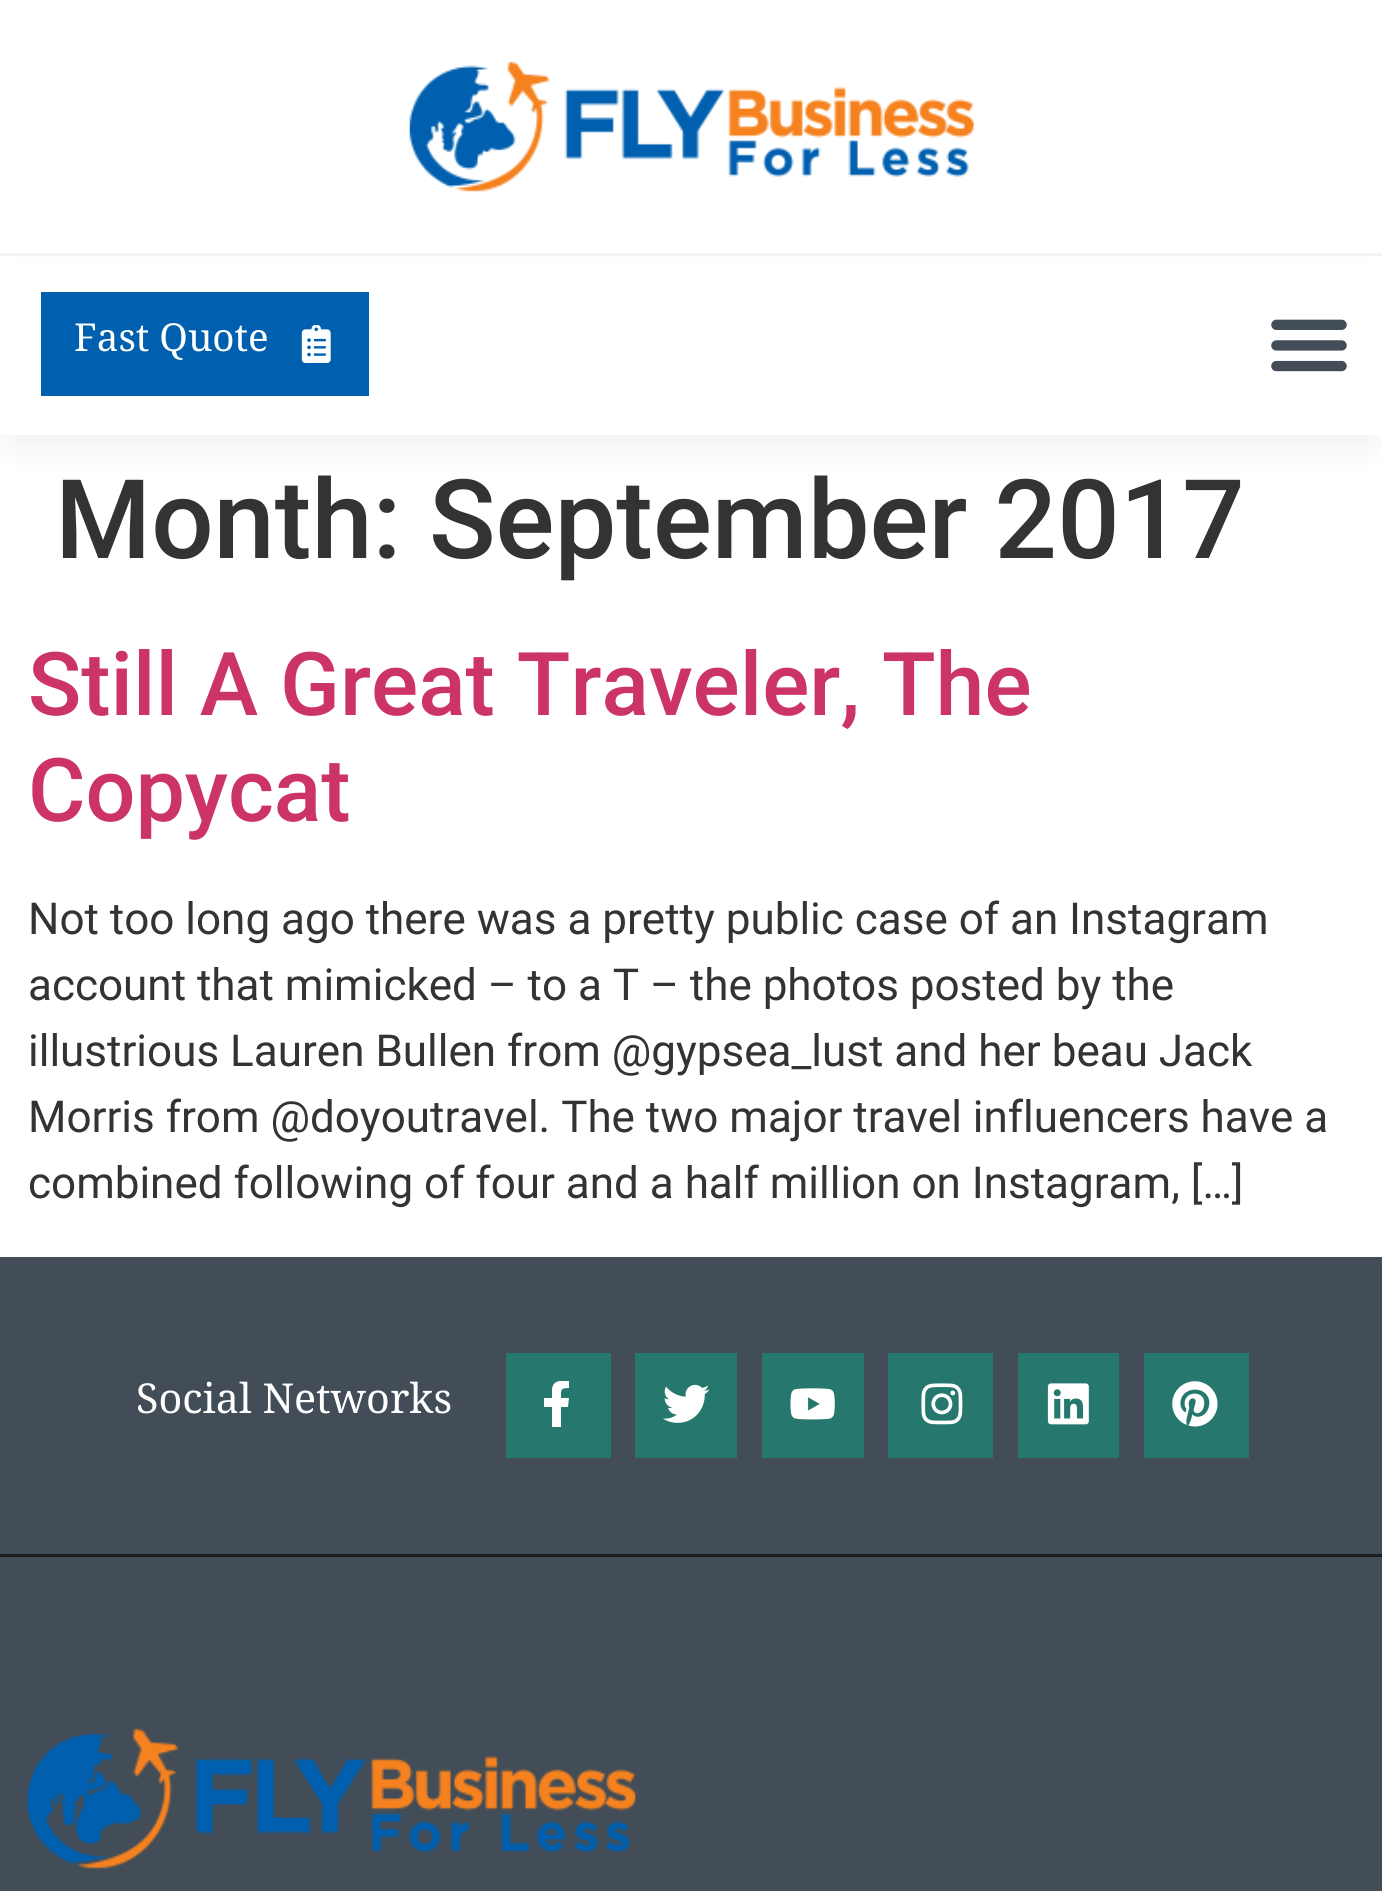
import math
import cairocffi as cairo

surface = cairo.ImageSurface(cairo.FORMAT_RGB24, 1382, 1891)
cr = cairo.Context(surface)
options = cairo.FontOptions()
options.set_hint_metrics(cairo.HINT_METRICS_OFF)
options.set_hint_style(cairo.HINT_STYLE_NONE)
cr.set_font_options(options)
cr.set_miter_limit(4)


def use_color(code):
    cr.set_source_rgb(*(v / 255 for v in bytes.fromhex(code[-6:])))


def round_rect(x, y, w, h, r):
    cr.new_sub_path()
    for i, (u, v) in enumerate([(x + w - r, y + h - r), (x + r, y + h - r), (x + r, y + r), (x + w - r, y + r)]):
        cr.arc(u, v, r, i * math.pi / 2, (i + 1) * math.pi / 2)
    cr.close_path()


def shadow(x, y, w, h, r, blur, alpha):
    cr.push_group_with_content(cairo.CONTENT_ALPHA)
    cr.set_operator(cairo.OPERATOR_SOURCE)
    for i in range(15, -16, -2):
        e = blur * i / 6
        if min(w, h) + 2 * e > 0:
            cr.set_source_rgba(0, 0, 0, alpha * math.erfc((i - 1) / 8.5) / 2)
            round_rect(x - e, y - e, w + 2 * e, h + 2 * e, max(0, min(r + e + blur * .6, min(w, h) / 2 + e)))
            cr.fill()
    cr.mask(cr.pop_group())


def picture(path, x, y, w, h):
    cr.save()
    cr.set_source_surface(cairo.ImageSurface.create_from_png(path), x, y)
    cr.rectangle(x, y, w, h)
    cr.fill()
    cr.restore()


use_color("#ffffff")
cr.paint()
use_color("#f4f4f4")
cr.rectangle(0, 253, 1382, 3)
cr.fill()
picture("img1.png", 409, 61, 565, 131)
use_color("#000000")
shadow(14, 289, 1356, 151, 0, 20.5, 0.08)
use_color("#ffffff")
cr.rectangle(0, 265, 1382, 170)
cr.fill()
use_color("#0060af")
cr.rectangle(41, 292, 328, 104)
cr.fill()
cr.select_font_face("Noto Serif")
cr.set_font_size(38.5)
use_color("#ffffff")
cr.move_to(74, 351)
cr.show_text("Fast Quote")
picture("img2.png", 301, 325, 30, 38)
picture("img3.png", 1271, 319, 76, 53)
cr.select_font_face("Roboto Medium")
cr.set_font_size(110)
use_color("#333333")
cr.move_to(55, 558)
cr.show_text("Month: September 2017")
cr.set_font_size(88)
use_color("#cc3366")
cr.move_to(28, 715)
cr.show_text("Still A Great Traveler, The")
cr.move_to(28, 821)
cr.show_text("Copycat")
cr.select_font_face("Roboto")
cr.set_font_size(44)
use_color("#333333")
cr.move_to(28, 934)
cr.show_text("Not too long ago there was a pretty public case of an Instagram")
cr.move_to(28, 1000)
cr.show_text("account that mimicked – to a T – the photos posted by the")
cr.move_to(28, 1066)
cr.show_text("illustrious Lauren Bullen from @gypsea_lust and her beau Jack")
cr.move_to(28, 1132)
cr.show_text("Morris from @doyoutravel. The two major travel influencers have a")
cr.move_to(28, 1198)
cr.show_text("combined following of four and a half million on Instagram, […]")
use_color("#424d58")
cr.rectangle(0, 1257, 1382, 297)
cr.fill()
use_color("#1c1d1f")
cr.rectangle(0, 1554, 1382, 3)
cr.fill()
cr.select_font_face("Noto Serif")
cr.set_font_size(41.25)
use_color("#ffffff")
cr.move_to(136, 1413)
cr.show_text("Social Networks")
use_color("#26786e")
cr.rectangle(506, 1353, 105, 105)
cr.fill()
cr.save()
cr.rectangle(534, 1381, 46, 46)
cr.clip()
use_color("#ffffff")
cr.new_path()
cr.move_to(568, 1407)
cr.line_to(569, 1398)
cr.line_to(561, 1398)
cr.curve_to(561, 1390, 560, 1388, 569, 1388)
cr.line_to(569, 1381)
cr.curve_to(562, 1380, 553, 1380, 552, 1389)
cr.line_to(552, 1398)
cr.line_to(544, 1398)
cr.line_to(544, 1407)
cr.line_to(552, 1407)
cr.line_to(552, 1427)
cr.line_to(561, 1427)
cr.line_to(561, 1407)
cr.close_path()
cr.fill()
cr.restore()
cr.rectangle(635, 1353, 102, 105)
cr.fill()
picture("img4.png", 663, 1384, 47, 39)
cr.rectangle(762, 1353, 102, 105)
cr.fill()
picture("img5.png", 790, 1388, 45, 32)
cr.rectangle(888, 1353, 105, 105)
cr.fill()
picture("img6.png", 921, 1383, 42, 42)
cr.rectangle(1018, 1353, 101, 105)
cr.fill()
picture("img7.png", 1047, 1383, 42, 42)
cr.rectangle(1144, 1353, 105, 105)
cr.fill()
picture("img8.png", 1172, 1381, 46, 46)
use_color("#424d58")
cr.rectangle(0, 1557, 1382, 334)
cr.fill()
picture("img9.png", 27, 1728, 609, 141)
surface.write_to_png("result.png")
